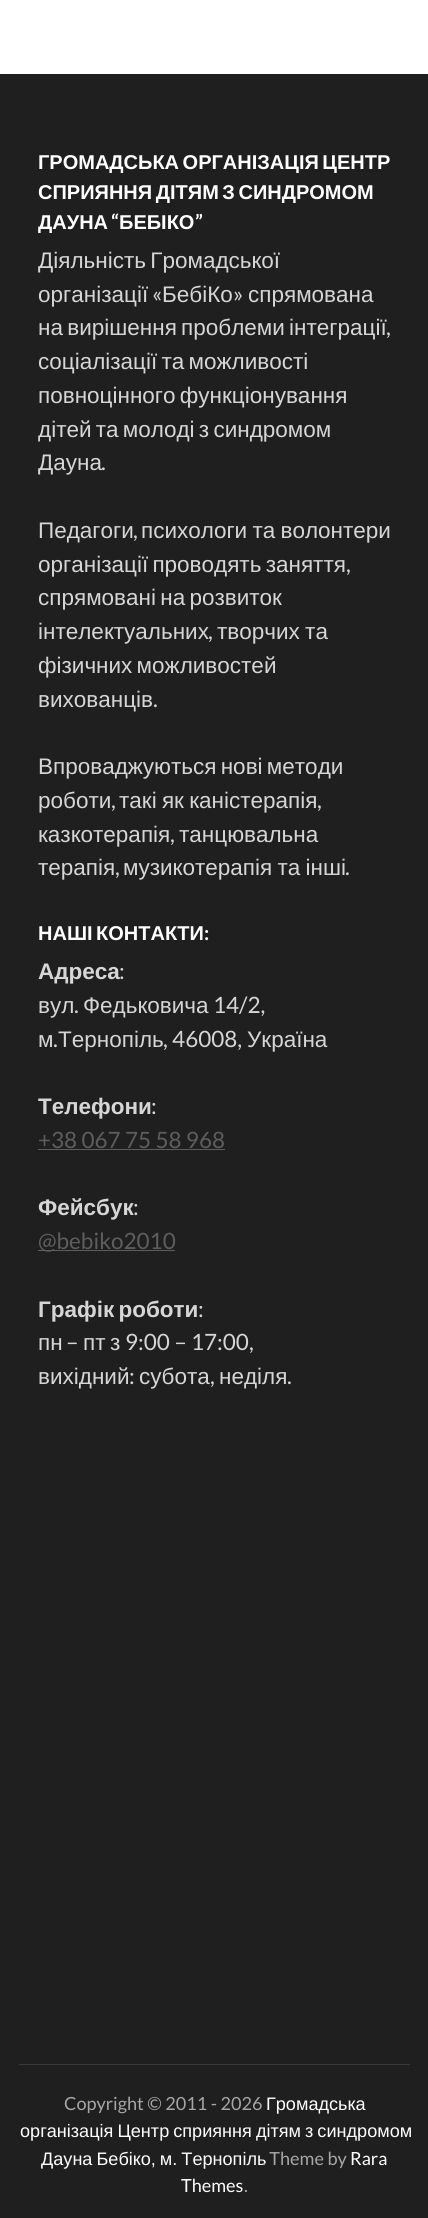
import math
import cairocffi as cairo

surface = cairo.ImageSurface(cairo.FORMAT_RGB24, 428, 2218)
cr = cairo.Context(surface)
options = cairo.FontOptions()
options.set_hint_metrics(cairo.HINT_METRICS_OFF)
options.set_hint_style(cairo.HINT_STYLE_NONE)
cr.set_font_options(options)
cr.set_miter_limit(4)


def use_color(code):
    cr.set_source_rgb(*(v / 255 for v in bytes.fromhex(code[-6:])))


def spaced_text(x, y, s, letter, word):
    cr.move_to(x, y)
    for ch in s:
        cr.show_text(ch)
        cr.rel_move_to(letter + word * (ch == ' '), 0)


use_color("#ffffff")
cr.paint()
use_color("#1f1f1f")
cr.rectangle(0, 74, 428, 2144)
cr.fill()
use_color("#3a3a3a")
cr.rectangle(19, 2064, 391, 1)
cr.fill()
cr.select_font_face("Liberation Sans", cairo.FONT_SLANT_NORMAL, cairo.FONT_WEIGHT_BOLD)
cr.set_font_size(20)
use_color("#ffffff")
spaced_text(38, 169, "ГРОМАДСЬКА ОРГАНІЗАЦІЯ ЦЕНТР", 0, -2)
spaced_text(38, 199, "СПРИЯННЯ ДІТЯМ З СИНДРОМОМ", 0, -2)
cr.move_to(38, 229)
cr.show_text("ДАУНА")
cr.select_font_face("Lato", cairo.FONT_SLANT_NORMAL, cairo.FONT_WEIGHT_BOLD)
cr.move_to(111, 229)
cr.show_text("“")
cr.select_font_face("Liberation Sans", cairo.FONT_SLANT_NORMAL, cairo.FONT_WEIGHT_BOLD)
cr.move_to(119, 229)
cr.show_text("БЕБІКО")
cr.select_font_face("Lato", cairo.FONT_SLANT_NORMAL, cairo.FONT_WEIGHT_BOLD)
cr.move_to(195, 229)
cr.show_text("”")
cr.select_font_face("Liberation Sans")
cr.set_font_size(22.5)
use_color("#d6d6d6")
spaced_text(38, 268, "Діяльність Громадської", 0, -2)
cr.move_to(38, 302)
cr.show_text("організації")
cr.select_font_face("Lato")
cr.move_to(152, 302)
cr.show_text("«")
cr.select_font_face("Liberation Sans")
cr.move_to(162, 302)
cr.show_text("БебіКо")
cr.select_font_face("Lato")
cr.move_to(233, 302)
cr.show_text("»")
cr.select_font_face("Liberation Sans")
cr.move_to(248, 302)
cr.show_text("спрямована")
spaced_text(38, 335, "на вирішення проблеми інтеграції", 0, -2)
cr.select_font_face("Lato")
cr.move_to(386, 335)
cr.show_text(",")
cr.select_font_face("Liberation Sans")
spaced_text(38, 369, "соціалізації та можливості", 0, -2)
spaced_text(38, 403, "повноцінного функціонування", 0, -2)
spaced_text(38, 437, "дітей та молоді з синдромом", 0, -2)
cr.move_to(38, 470)
cr.show_text("Дауна")
cr.select_font_face("Lato")
cr.move_to(101, 470)
cr.show_text(".")
cr.select_font_face("Liberation Sans")
cr.move_to(38, 538)
cr.show_text("Педагоги")
cr.select_font_face("Lato")
cr.move_to(133, 538)
cr.show_text(",")
cr.select_font_face("Liberation Sans")
spaced_text(141, 538, "психологи та волонтери", 0, -1)
spaced_text(38, 572, "організації проводять заняття", 0, -2)
cr.select_font_face("Lato")
cr.move_to(346, 572)
cr.show_text(",")
cr.select_font_face("Liberation Sans")
spaced_text(38, 605, "спрямовані на розвиток", 0, -2)
cr.move_to(38, 639)
cr.show_text("інтелектуальних")
cr.select_font_face("Lato")
cr.move_to(208, 639)
cr.show_text(",")
cr.select_font_face("Liberation Sans")
spaced_text(217, 639, "творчих та", 0, -1)
spaced_text(38, 673, "фізичних можливостей", 0, -2)
cr.move_to(38, 707)
cr.show_text("вихованців")
cr.select_font_face("Lato")
cr.move_to(153, 707)
cr.show_text(".")
cr.select_font_face("Liberation Sans")
spaced_text(38, 774, "Впроваджуються нові методи", 0, -2)
cr.move_to(38, 808)
cr.show_text("роботи")
cr.select_font_face("Lato")
cr.move_to(111, 808)
cr.show_text(",")
cr.select_font_face("Liberation Sans")
spaced_text(119, 808, "такі як каністерапія", 0, -1)
cr.select_font_face("Lato")
cr.move_to(317, 808)
cr.show_text(",")
cr.select_font_face("Liberation Sans")
cr.move_to(38, 842)
cr.show_text("казкотерапія")
cr.select_font_face("Lato")
cr.move_to(170, 842)
cr.show_text(",")
cr.select_font_face("Liberation Sans")
cr.move_to(179, 842)
cr.show_text("танцювальна")
cr.move_to(38, 875)
cr.show_text("терапія")
cr.select_font_face("Lato")
cr.move_to(115, 875)
cr.show_text(",")
cr.select_font_face("Liberation Sans")
spaced_text(123, 875, "музикотерапія та інші", 0, -1)
cr.select_font_face("Lato")
cr.move_to(345, 875)
cr.show_text(".")
cr.select_font_face("Liberation Sans", cairo.FONT_SLANT_NORMAL, cairo.FONT_WEIGHT_BOLD)
cr.set_font_size(20)
use_color("#ffffff")
spaced_text(38, 940, "НАШІ КОНТАКТИ", 0, -2)
cr.select_font_face("Lato", cairo.FONT_SLANT_NORMAL, cairo.FONT_WEIGHT_BOLD)
cr.move_to(204, 940)
cr.show_text(":")
cr.select_font_face("Liberation Sans", cairo.FONT_SLANT_NORMAL, cairo.FONT_WEIGHT_BOLD)
cr.set_font_size(22.5)
use_color("#d6d6d6")
cr.move_to(38, 979)
cr.show_text("Адреса")
cr.select_font_face("Lato")
cr.move_to(119, 979)
cr.show_text(":")
cr.select_font_face("Liberation Sans")
cr.move_to(38, 1013)
cr.show_text("вул")
cr.select_font_face("Lato")
cr.move_to(74, 1013)
cr.show_text(".")
cr.select_font_face("Liberation Sans")
cr.move_to(83, 1013)
cr.show_text("Федьковича")
cr.select_font_face("Lato")
cr.move_to(213, 1013)
cr.show_text("14/2,")
cr.select_font_face("Liberation Sans")
cr.move_to(38, 1047)
cr.show_text("м")
cr.select_font_face("Lato")
cr.move_to(53, 1047)
cr.show_text(".")
cr.select_font_face("Liberation Sans")
cr.move_to(58, 1047)
cr.show_text("Тернопіль")
cr.select_font_face("Lato")
cr.move_to(163, 1047)
cr.show_text(", 46008,")
cr.select_font_face("Liberation Sans")
cr.move_to(247, 1047)
cr.show_text("Україна")
cr.select_font_face("Liberation Sans", cairo.FONT_SLANT_NORMAL, cairo.FONT_WEIGHT_BOLD)
cr.move_to(38, 1114)
cr.show_text("Телефони")
cr.select_font_face("Lato")
cr.move_to(151, 1114)
cr.show_text(":")
use_color("#5d5d5d")
cr.move_to(38, 1148)
cr.show_text("+38 067 75 58 968")
cr.rectangle(38, 1149, 187, 1)
cr.fill()
cr.select_font_face("Liberation Sans", cairo.FONT_SLANT_NORMAL, cairo.FONT_WEIGHT_BOLD)
use_color("#d6d6d6")
cr.move_to(38, 1215)
cr.show_text("Фейсбук")
cr.select_font_face("Lato")
cr.move_to(133, 1215)
cr.show_text(":")
use_color("#5d5d5d")
cr.rectangle(38, 1250, 137, 1)
cr.fill()
cr.move_to(38, 1249)
cr.show_text("@bebiko2010")
cr.select_font_face("Liberation Sans", cairo.FONT_SLANT_NORMAL, cairo.FONT_WEIGHT_BOLD)
use_color("#d6d6d6")
spaced_text(38, 1317, "Графік роботи", 0, -2)
cr.select_font_face("Lato")
cr.move_to(198, 1317)
cr.show_text(":")
cr.select_font_face("Liberation Sans")
cr.move_to(38, 1350)
cr.show_text("пн")
cr.select_font_face("Lato")
cr.move_to(66, 1350)
cr.show_text("–")
cr.select_font_face("Liberation Sans")
cr.move_to(83, 1350)
cr.show_text("пт")
cr.move_to(110, 1350)
cr.show_text("з")
cr.select_font_face("Lato")
cr.move_to(125, 1350)
cr.show_text("9:00 – 17:00,")
cr.select_font_face("Liberation Sans")
cr.move_to(38, 1384)
cr.show_text("вихідний")
cr.select_font_face("Lato")
cr.move_to(129, 1384)
cr.show_text(":")
cr.select_font_face("Liberation Sans")
cr.move_to(139, 1384)
cr.show_text("субота")
cr.select_font_face("Lato")
cr.move_to(210, 1384)
cr.show_text(",")
cr.select_font_face("Liberation Sans")
cr.move_to(219, 1384)
cr.show_text("неділя")
cr.select_font_face("Lato")
cr.move_to(287, 1384)
cr.show_text(".")
cr.set_font_size(18.1)
use_color("#a6a6a6")
cr.move_to(64, 2110)
cr.show_text("Copyright © 2011 - 2026")
cr.select_font_face("Liberation Sans")
use_color("#ffffff")
cr.move_to(266, 2110)
cr.show_text("Громадська")
spaced_text(20, 2137, "організація Центр сприяння дітям з синдромом", 0, -1)
spaced_text(41, 2165, "Дауна Бебіко, м. Тернопіль", 0, -1)
cr.select_font_face("Lato")
use_color("#a6a6a6")
cr.move_to(262, 2165)
cr.show_text(". Theme by")
use_color("#ffffff")
cr.move_to(350, 2165)
cr.show_text("Rara")
cr.move_to(181, 2192)
cr.show_text("Themes")
use_color("#a6a6a6")
cr.move_to(244, 2192)
cr.show_text(".")
surface.write_to_png("result.png")
